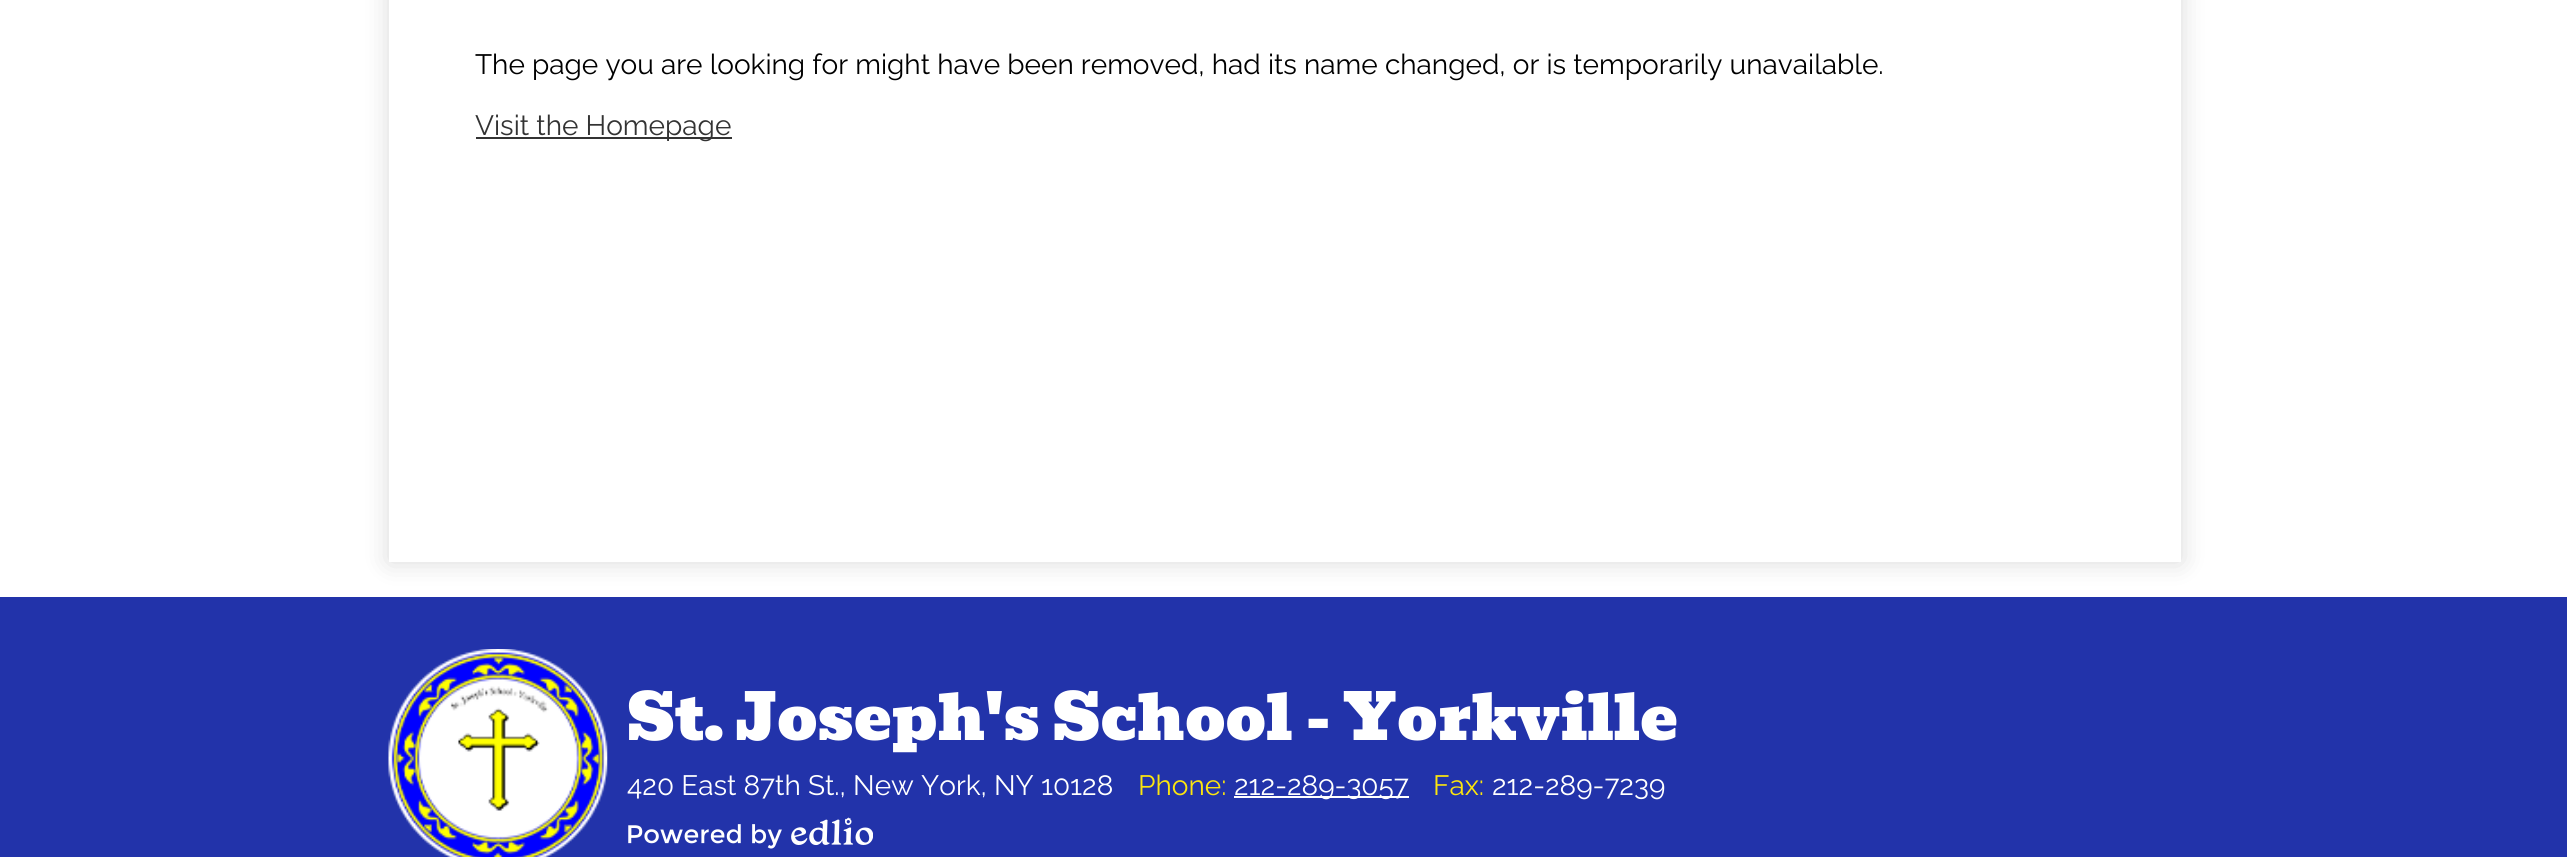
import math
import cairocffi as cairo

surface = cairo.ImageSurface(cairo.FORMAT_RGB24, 2567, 857)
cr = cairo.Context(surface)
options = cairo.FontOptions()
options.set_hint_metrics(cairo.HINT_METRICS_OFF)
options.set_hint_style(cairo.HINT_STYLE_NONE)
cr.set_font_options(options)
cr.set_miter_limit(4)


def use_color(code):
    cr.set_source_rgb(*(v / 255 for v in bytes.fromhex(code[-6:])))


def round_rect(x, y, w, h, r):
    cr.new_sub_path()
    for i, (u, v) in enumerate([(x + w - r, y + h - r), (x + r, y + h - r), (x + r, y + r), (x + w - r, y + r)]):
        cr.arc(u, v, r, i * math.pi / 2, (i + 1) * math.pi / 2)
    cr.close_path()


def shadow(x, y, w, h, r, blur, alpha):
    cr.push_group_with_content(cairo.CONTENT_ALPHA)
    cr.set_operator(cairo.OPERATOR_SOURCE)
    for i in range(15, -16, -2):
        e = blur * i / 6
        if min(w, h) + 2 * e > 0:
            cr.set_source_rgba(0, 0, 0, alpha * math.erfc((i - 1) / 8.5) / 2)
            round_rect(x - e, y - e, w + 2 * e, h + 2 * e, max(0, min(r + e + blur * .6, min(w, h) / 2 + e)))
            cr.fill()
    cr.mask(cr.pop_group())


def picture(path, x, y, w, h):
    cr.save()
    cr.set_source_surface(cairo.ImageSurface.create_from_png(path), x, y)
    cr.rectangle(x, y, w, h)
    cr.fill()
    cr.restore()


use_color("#ffffff")
cr.paint()
use_color("#000000")
shadow(389, -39, 1792, 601, 0, 13, 0.15)
use_color("#ffffff")
cr.rectangle(389, 0, 1792, 562)
cr.fill()
cr.select_font_face("Raleway")
cr.set_font_size(28)
use_color("#000000")
cr.move_to(475, 74)
cr.show_text("The page you are looking for might have been removed, had its name changed, or is temporarily unavailable.")
use_color("#333333")
cr.rectangle(476, 137, 256, 2)
cr.fill()
cr.move_to(475, 135)
cr.show_text("Visit the Homepage")
use_color("#2233aa")
cr.rectangle(0, 597, 2567, 260)
cr.fill()
picture("img1.png", 388, 649, 220, 208)
cr.select_font_face("Bevan")
cr.set_font_size(63)
use_color("#ffffff")
cr.move_to(627, 740)
cr.show_text("St. Joseph's School - Yorkville")
cr.select_font_face("Raleway")
cr.set_font_size(28)
cr.move_to(627, 795)
cr.show_text("420 East 87th St., New York, NY 10128")
use_color("#fce50d")
cr.move_to(1138, 795)
cr.show_text("Phone:")
use_color("#ffffff")
cr.rectangle(1234, 796, 175, 2)
cr.fill()
cr.move_to(1234, 795)
cr.show_text("212-289-3057")
use_color("#fce50d")
cr.move_to(1433, 795)
cr.show_text("Fax:")
use_color("#ffffff")
cr.move_to(1492, 795)
cr.show_text("212-289-7239")
picture("img2.png", 628, 817, 245, 32)
surface.write_to_png("result.png")
